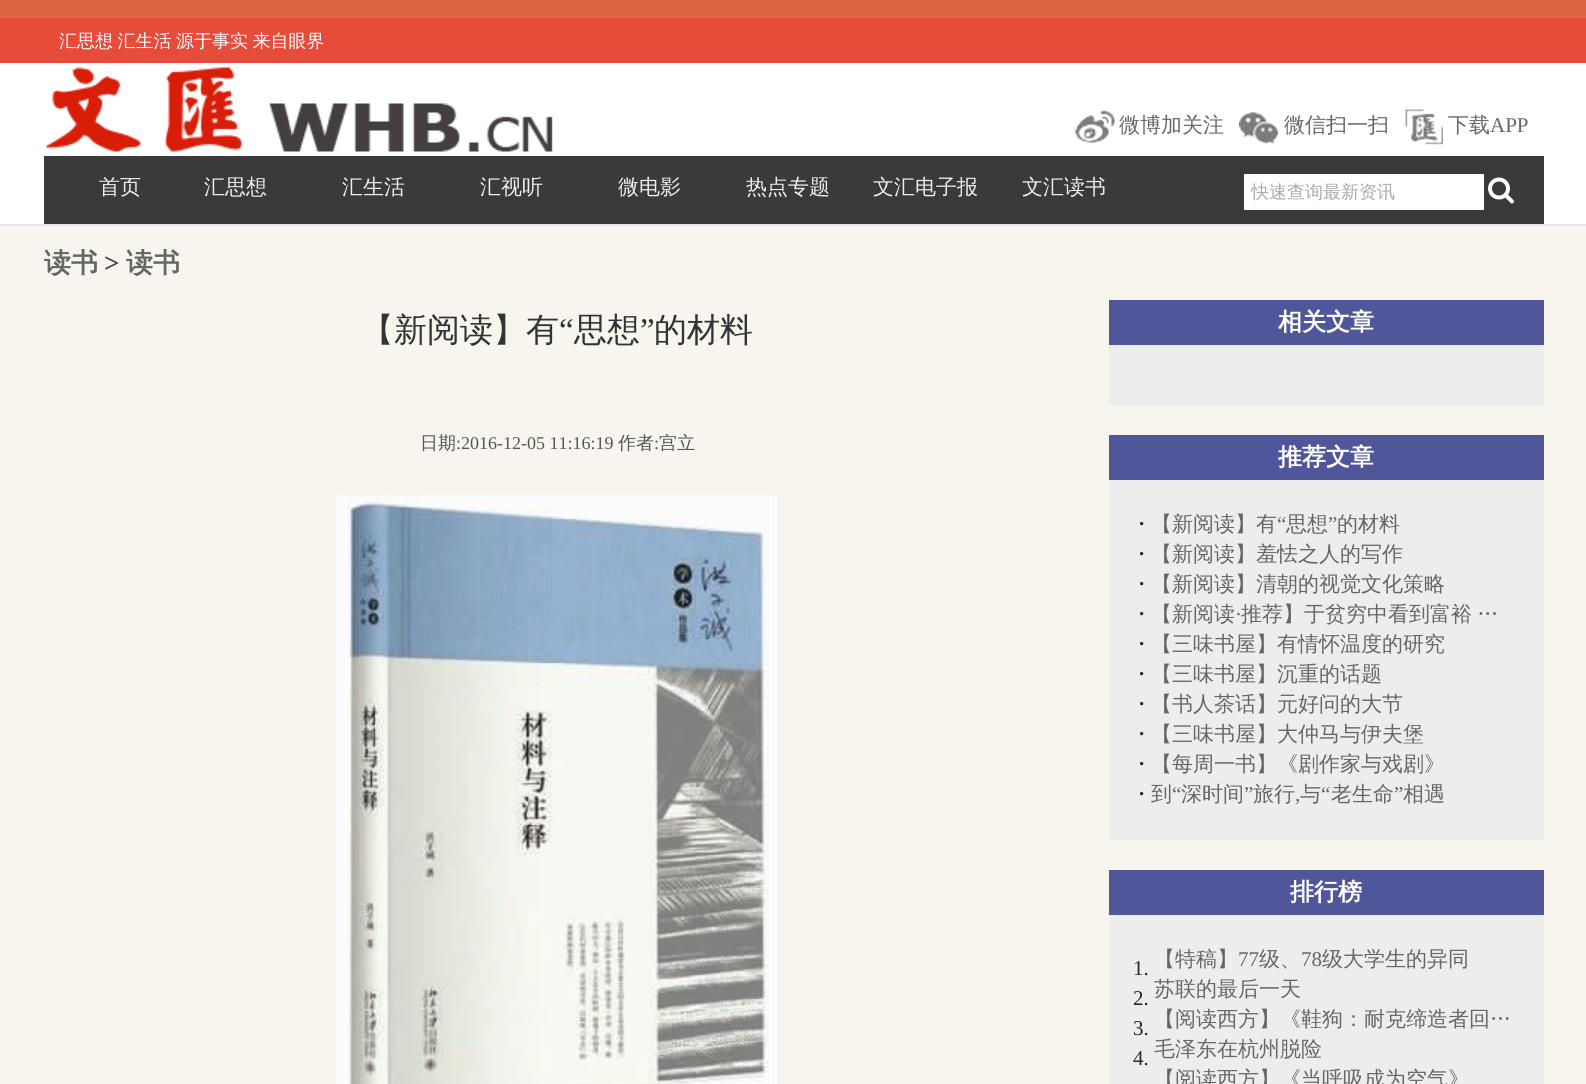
import math
import cairocffi as cairo

surface = cairo.ImageSurface(cairo.FORMAT_RGB24, 1586, 1084)
cr = cairo.Context(surface)
options = cairo.FontOptions()
options.set_hint_metrics(cairo.HINT_METRICS_OFF)
options.set_hint_style(cairo.HINT_STYLE_NONE)
cr.set_font_options(options)
cr.set_miter_limit(4)


def use_color(code):
    cr.set_source_rgb(*(v / 255 for v in bytes.fromhex(code[-6:])))


def spaced_text(x, y, s, letter, word):
    cr.move_to(x, y)
    for ch in s:
        cr.show_text(ch)
        cr.rel_move_to(letter + word * (ch == ' '), 0)


def picture(path, x, y, w, h):
    cr.save()
    cr.set_source_surface(cairo.ImageSurface.create_from_png(path), x, y)
    cr.rectangle(x, y, w, h)
    cr.fill()
    cr.restore()


use_color("#ffffff")
cr.paint()
picture("img1.png", 0, 0, 1586, 18)
use_color("#e74c3b")
cr.rectangle(0, 18, 1586, 45)
cr.fill()
cr.select_font_face("WenQuanYi Zen Hei Medium")
cr.set_font_size(18)
use_color("#ffffff")
spaced_text(59, 47, "汇思想 汇生活", 0, -1)
spaced_text(176, 47, "源于事实 来自眼界", 0, -1)
use_color("#e7e7e7")
cr.rectangle(0, 224, 1586, 2)
cr.fill()
picture("img2.png", 46, 67, 507, 85)
picture("img3.png", 1075, 110, 40, 33)
cr.set_font_size(21)
use_color("#666666")
cr.move_to(1119, 132)
cr.show_text("微博加关注")
picture("img4.png", 1239, 112, 39, 33)
cr.move_to(1284, 132)
cr.show_text("微信扫一扫")
picture("img5.png", 1405, 109, 38, 36)
cr.move_to(1448, 132)
cr.show_text("下载")
cr.select_font_face("Liberation Serif")
cr.move_to(1490, 132)
cr.show_text("APP")
use_color("#3a3a3a")
cr.rectangle(44, 156, 1500, 68)
cr.fill()
cr.select_font_face("WenQuanYi Zen Hei Medium")
use_color("#eeeeee")
cr.move_to(99, 194)
cr.show_text("首页")
cr.move_to(204, 194)
cr.show_text("汇思想")
cr.move_to(342, 194)
cr.show_text("汇生活")
cr.move_to(480, 194)
cr.show_text("汇视听")
cr.move_to(618, 194)
cr.show_text("微电影")
cr.move_to(746, 194)
cr.show_text("热点专题")
cr.move_to(873, 194)
cr.show_text("文汇电子报")
cr.move_to(1022, 194)
cr.show_text("文汇读书")
use_color("#ffffff")
cr.rectangle(1244, 174, 240, 36)
cr.fill()
cr.save()
cr.rectangle(1251, 180, 233, 26)
cr.clip()
cr.set_font_size(18)
use_color("#aca8a8")
cr.move_to(1251, 198)
cr.show_text("快速查询最新资讯")
cr.restore()
picture("img6.png", 1488, 177, 26, 27)
use_color("#f7f5ed")
cr.rectangle(0, 226, 1586, 858)
cr.fill()
cr.select_font_face("WenQuanYi Zen Hei", cairo.FONT_SLANT_NORMAL, cairo.FONT_WEIGHT_BOLD)
cr.set_font_size(27)
use_color("#666666")
cr.move_to(44, 272)
cr.show_text("读书")
cr.select_font_face("Liberation Serif", cairo.FONT_SLANT_NORMAL, cairo.FONT_WEIGHT_BOLD)
use_color("#443e3e")
cr.move_to(104, 272)
cr.show_text(">")
cr.select_font_face("WenQuanYi Zen Hei", cairo.FONT_SLANT_NORMAL, cairo.FONT_WEIGHT_BOLD)
use_color("#666666")
cr.move_to(126, 272)
cr.show_text("读书")
cr.select_font_face("WenQuanYi Zen Hei Medium")
cr.set_font_size(33)
use_color("#333333")
cr.move_to(361, 341)
cr.show_text("【新阅读】有")
cr.select_font_face("Liberation Serif")
cr.move_to(559, 341)
cr.show_text("“")
cr.select_font_face("WenQuanYi Zen Hei Medium")
cr.move_to(574, 341)
cr.show_text("思想")
cr.select_font_face("Liberation Serif")
cr.move_to(640, 341)
cr.show_text("”")
cr.select_font_face("WenQuanYi Zen Hei Medium")
cr.move_to(654, 341)
cr.show_text("的材料")
cr.set_font_size(18)
use_color("#555555")
cr.move_to(420, 449)
cr.show_text("日期")
cr.select_font_face("Liberation Serif")
cr.move_to(456, 449)
cr.show_text(":2016-12-05 11:16:19")
cr.select_font_face("WenQuanYi Zen Hei Medium")
cr.move_to(618, 449)
cr.show_text("作者")
cr.select_font_face("Liberation Serif")
cr.move_to(654, 449)
cr.show_text(":")
cr.select_font_face("WenQuanYi Zen Hei Medium")
cr.move_to(659, 449)
cr.show_text("宫立")
picture("img7.png", 336, 495, 443, 589)
use_color("#4f569a")
cr.rectangle(1109, 300, 435, 45)
cr.fill()
cr.select_font_face("WenQuanYi Zen Hei", cairo.FONT_SLANT_NORMAL, cairo.FONT_WEIGHT_BOLD)
cr.set_font_size(24)
use_color("#ffffff")
cr.move_to(1278, 330)
cr.show_text("相关文章")
use_color("#ededed")
cr.rectangle(1109, 345, 435, 60)
cr.fill()
use_color("#4f569a")
cr.rectangle(1109, 435, 435, 45)
cr.fill()
use_color("#ffffff")
cr.move_to(1278, 465)
cr.show_text("推荐文章")
use_color("#ededed")
cr.rectangle(1109, 480, 435, 360)
cr.fill()
cr.select_font_face("Liberation Serif", cairo.FONT_SLANT_NORMAL, cairo.FONT_WEIGHT_BOLD)
cr.set_font_size(21)
use_color("#272727")
cr.move_to(1139, 525)
cr.show_text(".")
cr.select_font_face("WenQuanYi Zen Hei Medium")
use_color("#666666")
cr.move_to(1151, 531)
cr.show_text("【新阅读】有")
cr.select_font_face("Liberation Serif")
cr.move_to(1277, 531)
cr.show_text("“")
cr.select_font_face("WenQuanYi Zen Hei Medium")
cr.move_to(1286, 531)
cr.show_text("思想")
cr.select_font_face("Liberation Serif")
cr.move_to(1328, 531)
cr.show_text("”")
cr.select_font_face("WenQuanYi Zen Hei Medium")
cr.move_to(1337, 531)
cr.show_text("的材料")
cr.select_font_face("Liberation Serif", cairo.FONT_SLANT_NORMAL, cairo.FONT_WEIGHT_BOLD)
use_color("#272727")
cr.move_to(1139, 555)
cr.show_text(".")
cr.select_font_face("WenQuanYi Zen Hei Medium")
use_color("#666666")
cr.move_to(1151, 561)
cr.show_text("【新阅读】羞怯之人的写作")
cr.select_font_face("Liberation Serif", cairo.FONT_SLANT_NORMAL, cairo.FONT_WEIGHT_BOLD)
use_color("#272727")
cr.move_to(1139, 585)
cr.show_text(".")
cr.select_font_face("WenQuanYi Zen Hei Medium")
use_color("#666666")
cr.move_to(1151, 591)
cr.show_text("【新阅读】清朝的视觉文化策略")
cr.select_font_face("Liberation Serif", cairo.FONT_SLANT_NORMAL, cairo.FONT_WEIGHT_BOLD)
use_color("#272727")
cr.move_to(1139, 615)
cr.show_text(".")
cr.select_font_face("WenQuanYi Zen Hei Medium")
use_color("#666666")
cr.move_to(1151, 621)
cr.show_text("【新阅读")
cr.select_font_face("Liberation Serif")
cr.move_to(1235, 621)
cr.show_text("·")
cr.select_font_face("WenQuanYi Zen Hei Medium")
spaced_text(1241, 621, "推荐】于贫穷中看到富裕 …", 0, -1)
cr.select_font_face("Liberation Serif", cairo.FONT_SLANT_NORMAL, cairo.FONT_WEIGHT_BOLD)
use_color("#272727")
cr.move_to(1139, 645)
cr.show_text(".")
cr.select_font_face("WenQuanYi Zen Hei Medium")
use_color("#666666")
cr.move_to(1151, 651)
cr.show_text("【三味书屋】有情怀温度的研究")
cr.select_font_face("Liberation Serif", cairo.FONT_SLANT_NORMAL, cairo.FONT_WEIGHT_BOLD)
use_color("#272727")
cr.move_to(1139, 675)
cr.show_text(".")
cr.select_font_face("WenQuanYi Zen Hei Medium")
use_color("#666666")
cr.move_to(1151, 681)
cr.show_text("【三味书屋】沉重的话题")
cr.select_font_face("Liberation Serif", cairo.FONT_SLANT_NORMAL, cairo.FONT_WEIGHT_BOLD)
use_color("#272727")
cr.move_to(1139, 705)
cr.show_text(".")
cr.select_font_face("WenQuanYi Zen Hei Medium")
use_color("#666666")
cr.move_to(1151, 711)
cr.show_text("【书人茶话】元好问的大节")
cr.select_font_face("Liberation Serif", cairo.FONT_SLANT_NORMAL, cairo.FONT_WEIGHT_BOLD)
use_color("#272727")
cr.move_to(1139, 735)
cr.show_text(".")
cr.select_font_face("WenQuanYi Zen Hei Medium")
use_color("#666666")
cr.move_to(1151, 741)
cr.show_text("【三味书屋】大仲马与伊夫堡")
cr.select_font_face("Liberation Serif", cairo.FONT_SLANT_NORMAL, cairo.FONT_WEIGHT_BOLD)
use_color("#272727")
cr.move_to(1139, 765)
cr.show_text(".")
cr.select_font_face("WenQuanYi Zen Hei Medium")
use_color("#666666")
cr.move_to(1151, 771)
cr.show_text("【每周一书】《剧作家与戏剧》")
cr.select_font_face("Liberation Serif", cairo.FONT_SLANT_NORMAL, cairo.FONT_WEIGHT_BOLD)
use_color("#272727")
cr.move_to(1139, 795)
cr.show_text(".")
cr.select_font_face("WenQuanYi Zen Hei Medium")
use_color("#666666")
cr.move_to(1151, 801)
cr.show_text("到")
cr.select_font_face("Liberation Serif")
cr.move_to(1172, 801)
cr.show_text("“")
cr.select_font_face("WenQuanYi Zen Hei Medium")
cr.move_to(1181, 801)
cr.show_text("深时间")
cr.select_font_face("Liberation Serif")
cr.move_to(1244, 801)
cr.show_text("”")
cr.select_font_face("WenQuanYi Zen Hei Medium")
cr.move_to(1253, 801)
cr.show_text("旅行")
cr.move_to(1300, 801)
cr.show_text("与")
cr.select_font_face("Liberation Serif")
cr.move_to(1321, 801)
cr.show_text("“")
cr.select_font_face("WenQuanYi Zen Hei Medium")
cr.move_to(1331, 801)
cr.show_text("老生命")
cr.select_font_face("Liberation Serif")
cr.move_to(1394, 801)
cr.show_text("”")
cr.select_font_face("WenQuanYi Zen Hei Medium")
cr.move_to(1403, 801)
cr.show_text("相遇")
cr.select_font_face("Liberation Serif")
cr.move_to(1295, 801)
cr.show_text(",")
use_color("#4f569a")
cr.rectangle(1109, 870, 435, 45)
cr.fill()
cr.select_font_face("WenQuanYi Zen Hei", cairo.FONT_SLANT_NORMAL, cairo.FONT_WEIGHT_BOLD)
cr.set_font_size(24)
use_color("#ffffff")
cr.move_to(1290, 900)
cr.show_text("排行榜")
use_color("#ededed")
cr.rectangle(1109, 915, 435, 169)
cr.fill()
cr.select_font_face("Liberation Serif")
cr.set_font_size(21)
use_color("#272727")
cr.move_to(1133, 975)
cr.show_text("1.")
cr.select_font_face("WenQuanYi Zen Hei Medium")
use_color("#666666")
cr.move_to(1154, 966)
cr.show_text("【特稿】")
cr.select_font_face("Liberation Serif")
cr.move_to(1238, 966)
cr.show_text("77")
cr.select_font_face("WenQuanYi Zen Hei Medium")
cr.move_to(1259, 966)
cr.show_text("级、")
cr.select_font_face("Liberation Serif")
cr.move_to(1301, 966)
cr.show_text("78")
cr.select_font_face("WenQuanYi Zen Hei Medium")
cr.move_to(1322, 966)
cr.show_text("级大学生的异同")
cr.select_font_face("Liberation Serif")
use_color("#272727")
cr.move_to(1133, 1005)
cr.show_text("2.")
cr.select_font_face("WenQuanYi Zen Hei Medium")
use_color("#666666")
cr.move_to(1154, 996)
cr.show_text("苏联的最后一天")
cr.select_font_face("Liberation Serif")
use_color("#272727")
cr.move_to(1133, 1035)
cr.show_text("3.")
cr.select_font_face("WenQuanYi Zen Hei Medium")
use_color("#666666")
cr.move_to(1154, 1026)
cr.show_text("【阅读西方】《鞋狗：耐克缔造者回…")
cr.select_font_face("Liberation Serif")
use_color("#272727")
cr.move_to(1133, 1065)
cr.show_text("4.")
cr.select_font_face("WenQuanYi Zen Hei Medium")
use_color("#666666")
cr.move_to(1154, 1056)
cr.show_text("毛泽东在杭州脱险")
cr.move_to(1154, 1086)
cr.show_text("【阅读西方】《当呼吸成为空气》")
surface.write_to_png("result.png")
